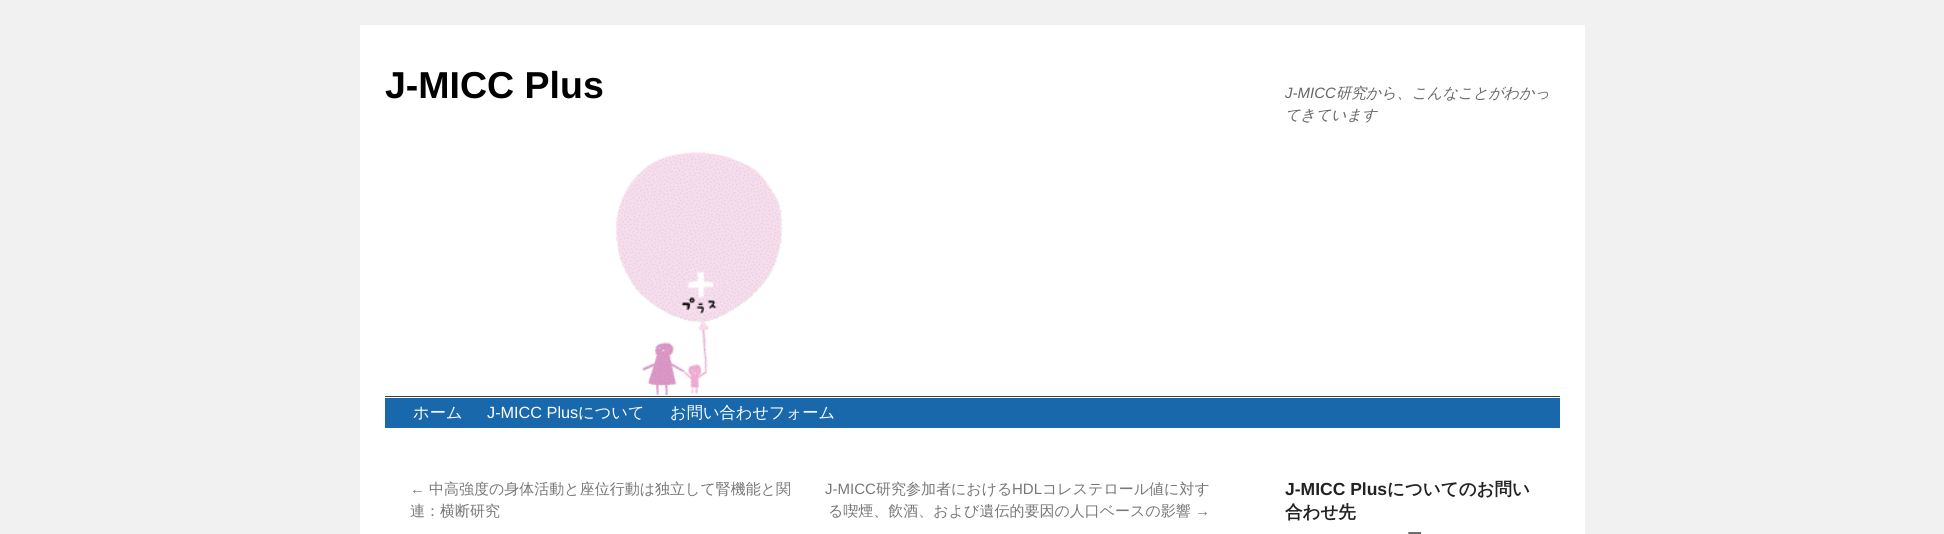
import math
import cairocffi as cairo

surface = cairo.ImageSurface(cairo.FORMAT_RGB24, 1944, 534)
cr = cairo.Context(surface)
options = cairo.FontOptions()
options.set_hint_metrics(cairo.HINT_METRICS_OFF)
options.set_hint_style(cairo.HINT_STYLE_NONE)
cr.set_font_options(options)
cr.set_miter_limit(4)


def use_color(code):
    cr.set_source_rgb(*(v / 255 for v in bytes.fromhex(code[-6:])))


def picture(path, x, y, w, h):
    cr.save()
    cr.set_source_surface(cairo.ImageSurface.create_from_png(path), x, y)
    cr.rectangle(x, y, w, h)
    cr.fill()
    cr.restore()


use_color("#f1f1f1")
cr.paint()
use_color("#ffffff")
cr.rectangle(360, 25, 1225, 509)
cr.fill()
cr.select_font_face("Liberation Sans", cairo.FONT_SLANT_NORMAL, cairo.FONT_WEIGHT_BOLD)
cr.set_font_size(37.5)
use_color("#000000")
cr.move_to(385, 98)
cr.show_text("J-MICC Plus")
cr.select_font_face("Liberation Sans", cairo.FONT_SLANT_ITALIC)
cr.set_font_size(15)
use_color("#666666")
cr.move_to(1285, 98)
cr.show_text("J-MICC")
cr.select_font_face("WenQuanYi Zen Hei Medium", cairo.FONT_SLANT_ITALIC)
cr.move_to(1336, 98)
cr.show_text("研究から、こんなことがわかっ")
cr.move_to(1285, 120)
cr.show_text("てきています")
use_color("#000000")
cr.rectangle(385, 396, 1175, 1)
cr.fill()
picture("img1.png", 385, 152, 1175, 245)
use_color("#1968ac")
cr.rectangle(385, 398, 1175, 30)
cr.fill()
cr.select_font_face("WenQuanYi Zen Hei Medium")
cr.set_font_size(16.25)
use_color("#ffffff")
cr.move_to(413, 418)
cr.show_text("ホーム")
cr.select_font_face("Liberation Sans")
cr.move_to(487, 418)
cr.show_text("J-MICC Plus")
cr.select_font_face("WenQuanYi Zen Hei Medium")
cr.move_to(578, 418)
cr.show_text("について")
cr.move_to(670, 418)
cr.show_text("お問い合わせフォーム")
cr.select_font_face("Liberation Sans")
cr.set_font_size(15)
use_color("#777777")
cr.move_to(410, 494)
cr.show_text("←")
cr.select_font_face("WenQuanYi Zen Hei Medium")
cr.move_to(429, 494)
cr.show_text("中高強度の身体活動と座位行動は独立して腎機能と関")
cr.move_to(410, 516)
cr.show_text("連：横断研究")
cr.select_font_face("Liberation Sans")
cr.move_to(825, 494)
cr.show_text("J-MICC")
cr.select_font_face("WenQuanYi Zen Hei Medium")
cr.move_to(876, 494)
cr.show_text("研究参加者における")
cr.select_font_face("Liberation Sans")
cr.move_to(1012, 494)
cr.show_text("HDL")
cr.select_font_face("WenQuanYi Zen Hei Medium")
cr.move_to(1042, 494)
cr.show_text("コレステロール値に対す")
cr.move_to(828, 516)
cr.show_text("る喫煙、飲酒、および遺伝的要因の人口ベースの影響")
cr.select_font_face("Liberation Sans")
cr.move_to(1195, 516)
cr.show_text("→")
cr.select_font_face("Liberation Sans", cairo.FONT_SLANT_NORMAL, cairo.FONT_WEIGHT_BOLD)
cr.set_font_size(17.5)
use_color("#222222")
cr.move_to(1285, 495)
cr.show_text("J-MICC Plus")
cr.select_font_face("WenQuanYi Zen Hei", cairo.FONT_SLANT_NORMAL, cairo.FONT_WEIGHT_BOLD)
cr.move_to(1387, 495)
cr.show_text("についてのお問い")
cr.move_to(1285, 518)
cr.show_text("合わせ先")
cr.set_font_size(15)
use_color("#666666")
cr.move_to(1407, 539)
cr.show_text("ー")
surface.write_to_png("result.png")
